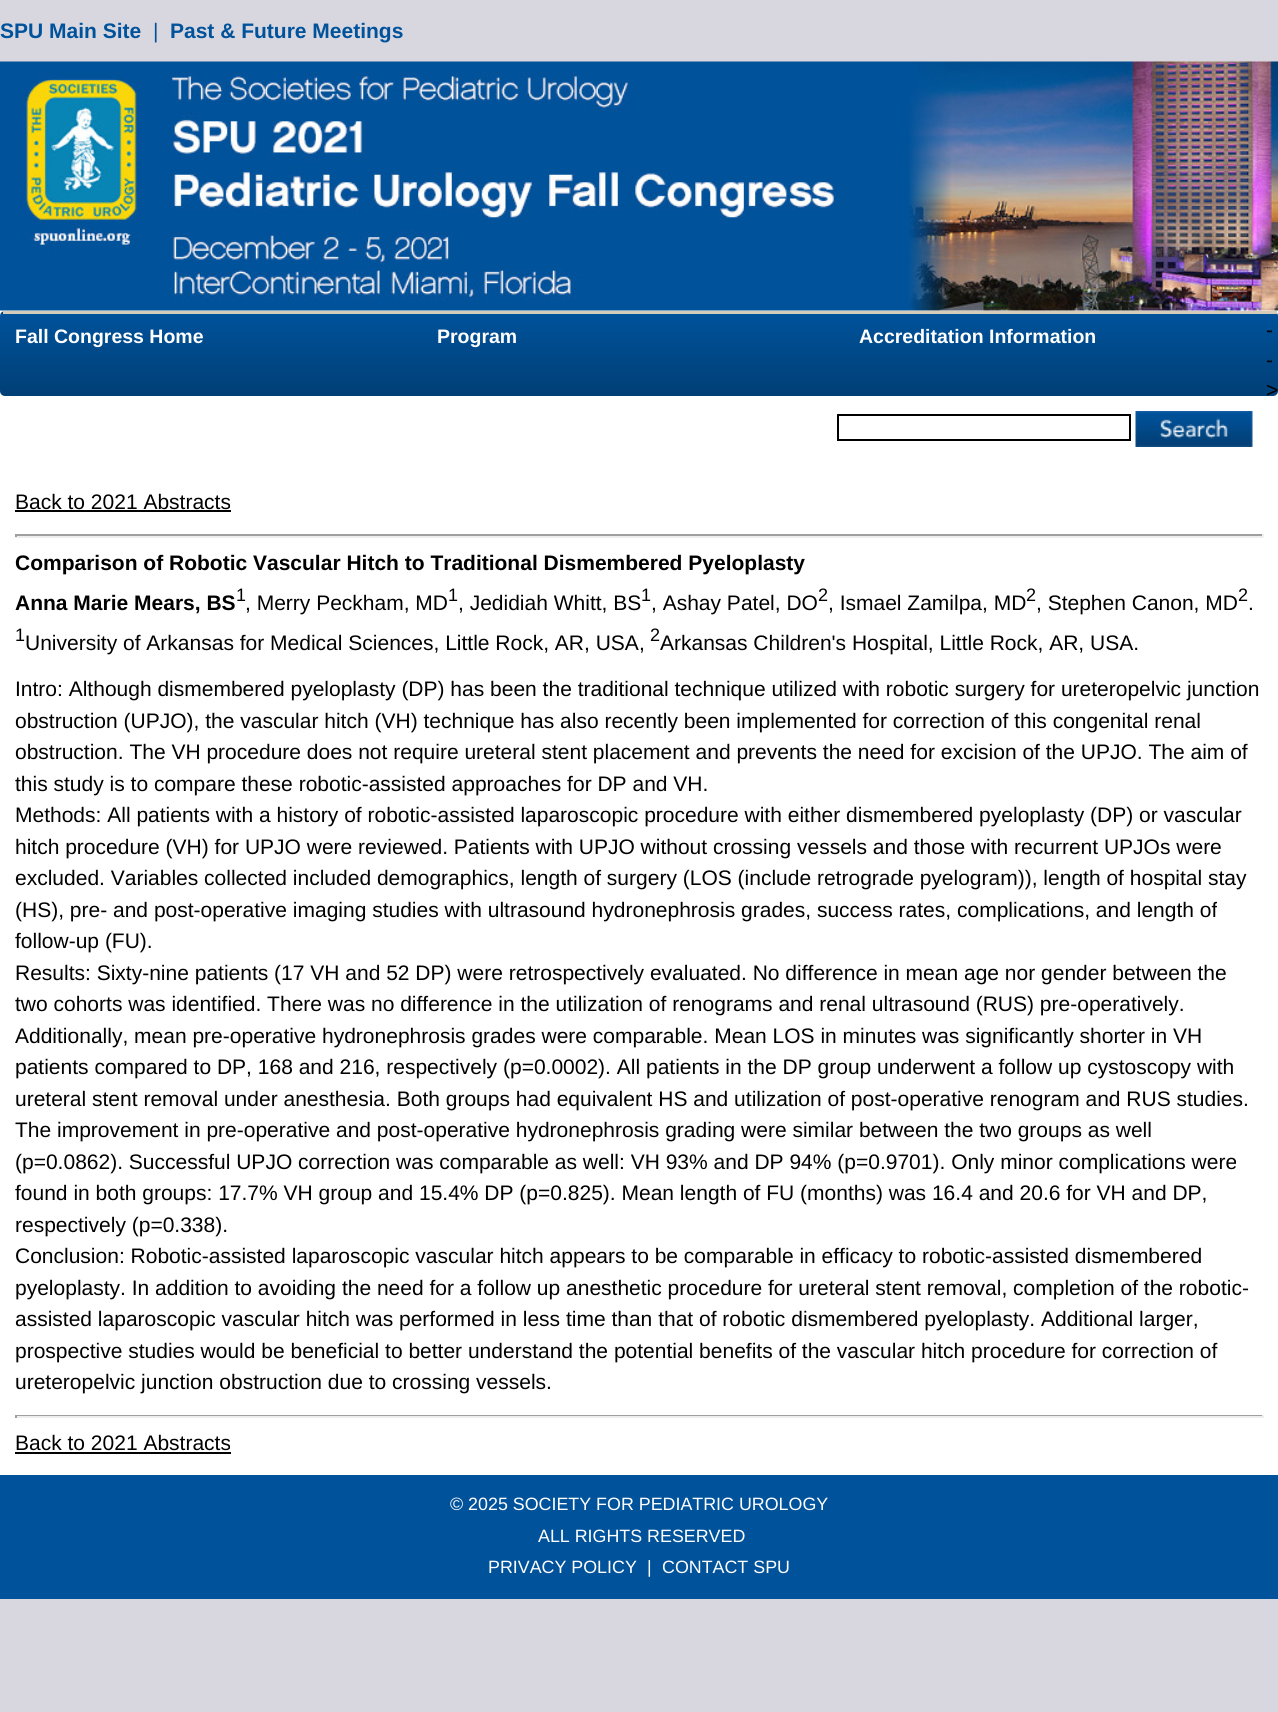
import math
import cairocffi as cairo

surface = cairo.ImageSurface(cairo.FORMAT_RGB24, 1278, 1712)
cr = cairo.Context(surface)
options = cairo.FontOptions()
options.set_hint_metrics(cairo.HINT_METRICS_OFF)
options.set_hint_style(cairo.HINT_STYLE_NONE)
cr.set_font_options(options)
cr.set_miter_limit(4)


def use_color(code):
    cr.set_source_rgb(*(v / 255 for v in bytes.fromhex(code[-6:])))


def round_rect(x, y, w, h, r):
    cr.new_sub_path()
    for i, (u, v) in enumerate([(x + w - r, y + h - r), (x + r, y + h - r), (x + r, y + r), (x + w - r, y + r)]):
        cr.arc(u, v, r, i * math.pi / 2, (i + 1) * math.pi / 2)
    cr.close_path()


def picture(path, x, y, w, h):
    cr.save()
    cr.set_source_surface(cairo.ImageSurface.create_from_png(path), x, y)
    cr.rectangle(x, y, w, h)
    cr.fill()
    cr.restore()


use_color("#d8d7df")
cr.paint()
use_color("#ffffff")
cr.rectangle(0, 310, 1278, 1165)
cr.fill()
cr.select_font_face("Liberation Sans", cairo.FONT_SLANT_NORMAL, cairo.FONT_WEIGHT_BOLD)
cr.set_font_size(21)
use_color("#00529b")
cr.move_to(0, 38)
cr.show_text("SPU Main Site")
cr.select_font_face("Liberation Sans")
cr.move_to(153, 38)
cr.show_text("|")
cr.select_font_face("Liberation Sans", cairo.FONT_SLANT_NORMAL, cairo.FONT_WEIGHT_BOLD)
cr.move_to(170, 38)
cr.show_text("Past & Future Meetings")
picture("img1.png", 0, 61, 1278, 250)
cr.save()
round_rect(0, 311, 1278, 85, 5)
cr.clip()
gradient = cairo.LinearGradient(639, 231, 639, 314)
gradient.add_color_stop_rgba(0, 0, 0.322, 0.608, 1)
gradient.add_color_stop_rgba(1, 0.004, 0.247, 0.463, 1)
cr.set_source(gradient)
cr.rectangle(0, 311, 1278, 3)
cr.fill()
gradient = cairo.LinearGradient(639, 313, 639, 396)
gradient.add_color_stop_rgba(0, 0, 0.322, 0.608, 1)
gradient.add_color_stop_rgba(1, 0.004, 0.247, 0.463, 1)
cr.set_source(gradient)
cr.new_path()
cr.move_to(0, 314)
cr.line_to(1278, 314)
cr.line_to(1278, 391)
cr.curve_to(1278, 394, 1276, 396, 1273, 396)
cr.line_to(5, 396)
cr.curve_to(2, 396, 0, 394, 0, 391)
cr.close_path()
cr.fill()
cr.restore()
use_color("#d5ccba")
cr.rectangle(3, 311, 1274, 3)
cr.fill()
cr.set_font_size(19.5)
use_color("#ffffff")
cr.move_to(15, 343)
cr.show_text("Fall Congress Home")
cr.move_to(437, 343)
cr.show_text("Program")
cr.move_to(859, 343)
cr.show_text("Accreditation Information")
cr.select_font_face("Liberation Sans")
cr.set_font_size(21)
use_color("#000000")
cr.move_to(1266, 337)
cr.show_text("-")
cr.move_to(1266, 367)
cr.show_text("-")
cr.move_to(1266, 397)
cr.show_text(">")
cr.rectangle(838, 415, 292, 25)
cr.stroke()
picture("img2.png", 1135, 411, 118, 36)
cr.move_to(15, 509)
cr.show_text("Back to 2021 Abstracts")
cr.rectangle(15, 510, 216, 2)
cr.fill()
use_color("#9f9f9f")
cr.rectangle(15, 534, 1248, 2)
cr.fill()
use_color("#eeeeee")
cr.rectangle(1262, 534, 2, 3)
cr.fill()
cr.rectangle(15, 536, 1248, 2)
cr.fill()
use_color("#9f9f9f")
cr.rectangle(15, 534, 2, 3)
cr.fill()
cr.select_font_face("Liberation Sans", cairo.FONT_SLANT_NORMAL, cairo.FONT_WEIGHT_BOLD)
use_color("#000000")
cr.move_to(15, 570)
cr.show_text("Comparison of Robotic Vascular Hitch to Traditional Dismembered Pyeloplasty")
cr.move_to(15, 610)
cr.show_text("Anna Marie Mears, BS")
cr.select_font_face("Liberation Sans")
cr.set_font_size(18)
cr.move_to(236, 601)
cr.show_text("1")
cr.set_font_size(21)
cr.move_to(245, 610)
cr.show_text(", Merry Peckham, MD")
cr.set_font_size(18)
cr.move_to(448, 601)
cr.show_text("1")
cr.set_font_size(21)
cr.move_to(458, 610)
cr.show_text(", Jedidiah Whitt, BS")
cr.set_font_size(18)
cr.move_to(641, 601)
cr.show_text("1")
cr.set_font_size(21)
cr.move_to(651, 610)
cr.show_text(", Ashay Patel, DO")
cr.set_font_size(18)
cr.move_to(818, 601)
cr.show_text("2")
cr.set_font_size(21)
cr.move_to(828, 610)
cr.show_text(", Ismael Zamilpa, MD")
cr.set_font_size(18)
cr.move_to(1026, 601)
cr.show_text("2")
cr.set_font_size(21)
cr.move_to(1036, 610)
cr.show_text(", Stephen Canon, MD")
cr.set_font_size(18)
cr.move_to(1238, 601)
cr.show_text("2")
cr.set_font_size(21)
cr.move_to(1248, 610)
cr.show_text(".")
cr.set_font_size(18)
cr.move_to(15, 641)
cr.show_text("1")
cr.set_font_size(21)
cr.move_to(25, 650)
cr.show_text("University of Arkansas for Medical Sciences, Little Rock, AR, USA,")
cr.set_font_size(18)
cr.move_to(650, 641)
cr.show_text("2")
cr.set_font_size(21)
cr.move_to(660, 650)
cr.show_text("Arkansas Children's Hospital, Little Rock, AR, USA.")
cr.move_to(15, 696)
cr.show_text("Intro: Although dismembered pyeloplasty (DP) has been the traditional technique utilized with robotic surgery for ureteropelvic junction")
cr.move_to(15, 728)
cr.show_text("obstruction (UPJO), the vascular hitch (VH) technique has also recently been implemented for correction of this congenital renal")
cr.move_to(15, 759)
cr.show_text("obstruction. The VH procedure does not require ureteral stent placement and prevents the need for excision of the UPJO. The aim of")
cr.move_to(15, 791)
cr.show_text("this study is to compare these robotic-assisted approaches for DP and VH.")
cr.move_to(15, 822)
cr.show_text("Methods: All patients with a history of robotic-assisted laparoscopic procedure with either dismembered pyeloplasty (DP) or vascular")
cr.move_to(15, 854)
cr.show_text("hitch procedure (VH) for UPJO were reviewed. Patients with UPJO without crossing vessels and those with recurrent UPJOs were")
cr.move_to(15, 885)
cr.show_text("excluded. Variables collected included demographics, length of surgery (LOS (include retrograde pyelogram)), length of hospital stay")
cr.move_to(15, 917)
cr.show_text("(HS), pre- and post-operative imaging studies with ultrasound hydronephrosis grades, success rates, complications, and length of")
cr.move_to(15, 948)
cr.show_text("follow-up (FU).")
cr.move_to(15, 980)
cr.show_text("Results: Sixty-nine patients (17 VH and 52 DP) were retrospectively evaluated. No difference in mean age nor gender between the")
cr.move_to(15, 1011)
cr.show_text("two cohorts was identified. There was no difference in the utilization of renograms and renal ultrasound (RUS) pre-operatively.")
cr.move_to(15, 1043)
cr.show_text("Additionally, mean pre-operative hydronephrosis grades were comparable. Mean LOS in minutes was significantly shorter in VH")
cr.move_to(15, 1074)
cr.show_text("patients compared to DP, 168 and 216, respectively (p=0.0002). All patients in the DP group underwent a follow up cystoscopy with")
cr.move_to(15, 1106)
cr.show_text("ureteral stent removal under anesthesia. Both groups had equivalent HS and utilization of post-operative renogram and RUS studies.")
cr.move_to(15, 1137)
cr.show_text("The improvement in pre-operative and post-operative hydronephrosis grading were similar between the two groups as well")
cr.move_to(15, 1169)
cr.show_text("(p=0.0862). Successful UPJO correction was comparable as well: VH 93% and DP 94% (p=0.9701). Only minor complications were")
cr.move_to(15, 1200)
cr.show_text("found in both groups: 17.7% VH group and 15.4% DP (p=0.825). Mean length of FU (months) was 16.4 and 20.6 for VH and DP,")
cr.move_to(15, 1232)
cr.show_text("respectively (p=0.338).")
cr.move_to(15, 1263)
cr.show_text("Conclusion: Robotic-assisted laparoscopic vascular hitch appears to be comparable in efficacy to robotic-assisted dismembered")
cr.move_to(15, 1295)
cr.show_text("pyeloplasty. In addition to avoiding the need for a follow up anesthetic procedure for ureteral stent removal, completion of the robotic-")
cr.move_to(15, 1326)
cr.show_text("assisted laparoscopic vascular hitch was performed in less time than that of robotic dismembered pyeloplasty. Additional larger,")
cr.move_to(15, 1358)
cr.show_text("prospective studies would be beneficial to better understand the potential benefits of the vascular hitch procedure for correction of")
cr.move_to(15, 1389)
cr.show_text("ureteropelvic junction obstruction due to crossing vessels.")
use_color("#9f9f9f")
cr.rectangle(15, 1415, 1248, 1)
cr.fill()
use_color("#eeeeee")
cr.rectangle(1262, 1415, 2, 3)
cr.fill()
cr.rectangle(15, 1416, 1248, 2)
cr.fill()
use_color("#9f9f9f")
cr.rectangle(15, 1415, 2, 3)
cr.fill()
use_color("#000000")
cr.move_to(15, 1450)
cr.show_text("Back to 2021 Abstracts")
cr.rectangle(15, 1452, 216, 2)
cr.fill()
use_color("#00529b")
cr.rectangle(0, 1475, 1278, 124)
cr.fill()
cr.set_font_size(17.85)
use_color("#ffffff")
cr.move_to(450, 1510)
cr.show_text("© 2025 SOCIETY FOR PEDIATRIC UROLOGY")
cr.move_to(538, 1542)
cr.show_text("ALL RIGHTS RESERVED")
cr.move_to(488, 1573)
cr.show_text("PRIVACY POLICY")
cr.move_to(647, 1573)
cr.show_text("|")
cr.move_to(662, 1573)
cr.show_text("CONTACT SPU")
surface.write_to_png("result.png")
